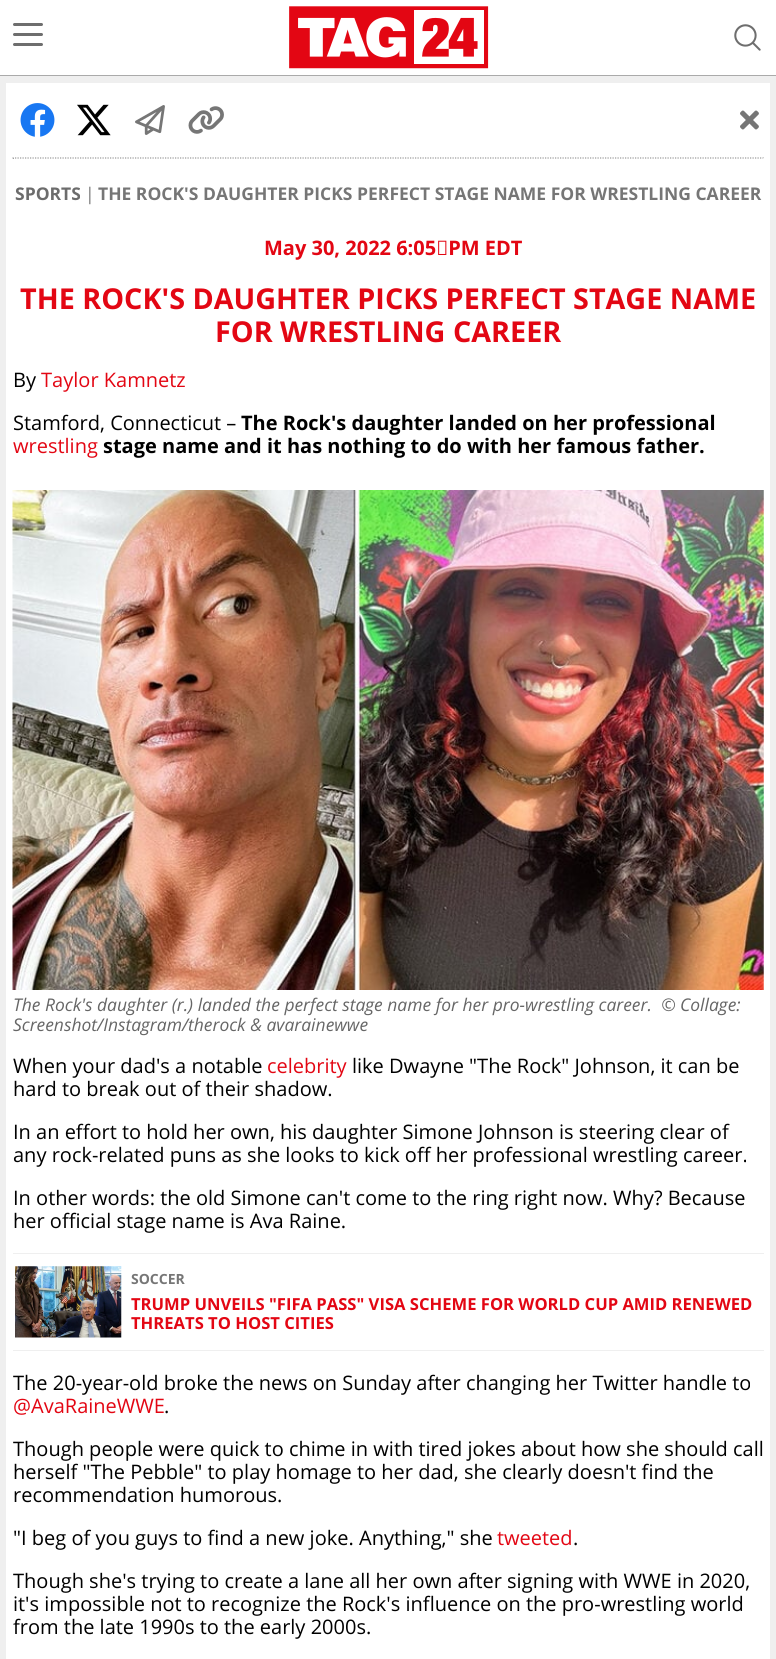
import math
import cairocffi as cairo

surface = cairo.ImageSurface(cairo.FORMAT_RGB24, 776, 1659)
cr = cairo.Context(surface)
options = cairo.FontOptions()
options.set_hint_metrics(cairo.HINT_METRICS_OFF)
options.set_hint_style(cairo.HINT_STYLE_NONE)
cr.set_font_options(options)
cr.set_miter_limit(4)


def use_color(code):
    cr.set_source_rgb(*(v / 255 for v in bytes.fromhex(code[-6:])))


def round_rect(x, y, w, h, r):
    cr.new_sub_path()
    for i, (u, v) in enumerate([(x + w - r, y + h - r), (x + r, y + h - r), (x + r, y + r), (x + w - r, y + r)]):
        cr.arc(u, v, r, i * math.pi / 2, (i + 1) * math.pi / 2)
    cr.close_path()


def picture(path, x, y, w, h):
    cr.save()
    cr.set_source_surface(cairo.ImageSurface.create_from_png(path), x, y)
    cr.rectangle(x, y, w, h)
    cr.fill()
    cr.restore()


use_color("#efefef")
cr.paint()
use_color("#ffffff")
cr.rectangle(0, 0, 776, 75)
cr.fill()
use_color("#aaaaaa")
cr.rectangle(0, 75, 776, 1)
cr.fill()
use_color("#6e6e6e")
round_rect(13, 33, 30, 3, 1.5)
cr.fill()
round_rect(13, 23, 30, 3, 1.5)
cr.fill()
round_rect(13, 43, 30, 3, 1.5)
cr.fill()
picture("img1.png", 289, 6, 200, 63)
picture("img2.png", 734, 24, 27, 27)
use_color("#ffffff")
cr.rectangle(6, 83, 764, 1576)
cr.fill()
picture("img3.png", 20, 103, 35, 34)
picture("img4.png", 77, 104, 34, 32)
picture("img5.png", 135, 105, 30, 30)
picture("img6.png", 188, 106, 36, 28)
picture("img7.png", 740, 110, 19, 20)
cr.new_path()
cr.move_to(12.5, 158)
cr.line_to(764, 158)
use_color("#999999")
cr.set_line_width(1.2)
cr.set_dash([1.25, 1.25])
cr.stroke()
use_color("#eeeeee")
cr.rectangle(763, 158, 1, 1)
cr.fill()
use_color("#9f9f9f")
cr.rectangle(13, 158, 1, 1)
cr.fill()
cr.select_font_face("Open Sans", cairo.FONT_SLANT_NORMAL, cairo.FONT_WEIGHT_BOLD)
cr.set_font_size(17.5)
use_color("#6c6c6c")
cr.move_to(15, 200)
cr.show_text("SPORTS")
cr.select_font_face("Open Sans")
use_color("#767676")
cr.move_to(85, 200)
cr.show_text("|")
cr.select_font_face("Open Sans", cairo.FONT_SLANT_NORMAL, cairo.FONT_WEIGHT_BOLD)
cr.move_to(98, 200)
cr.show_text("THE ROCK'S DAUGHTER PICKS PERFECT STAGE NAME FOR WRESTLING CAREER")
cr.set_font_size(20)
use_color("#e30613")
cr.move_to(264, 255)
cr.show_text("May 30, 2022 6:05 PM EDT")
cr.set_font_size(28.75)
cr.move_to(20, 309)
cr.show_text("THE ROCK'S DAUGHTER PICKS PERFECT STAGE NAME")
cr.move_to(215, 342)
cr.show_text("FOR WRESTLING CAREER")
cr.select_font_face("Open Sans")
cr.set_font_size(20)
use_color("#000000")
cr.move_to(13, 387)
cr.show_text("By")
use_color("#e30613")
cr.move_to(41, 387)
cr.show_text("Taylor Kamnetz")
use_color("#000000")
cr.move_to(13, 430)
cr.show_text("Stamford, Connecticut –")
cr.select_font_face("Open Sans", cairo.FONT_SLANT_NORMAL, cairo.FONT_WEIGHT_BOLD)
cr.move_to(241, 430)
cr.show_text("The Rock's daughter landed on her professional")
cr.select_font_face("Open Sans")
use_color("#e30613")
cr.move_to(13, 453)
cr.show_text("wrestling")
cr.select_font_face("Open Sans", cairo.FONT_SLANT_NORMAL, cairo.FONT_WEIGHT_BOLD)
use_color("#000000")
cr.move_to(103, 453)
cr.show_text("stage name and it has nothing to do with her famous father.")
picture("img8.png", 12, 490, 752, 500)
cr.select_font_face("Open Sans", cairo.FONT_SLANT_ITALIC)
cr.set_font_size(17.5)
use_color("#666666")
cr.move_to(13, 1011)
cr.show_text("The Rock's daughter (r.) landed the perfect stage name for her pro-wrestling career.  © Collage:")
cr.move_to(13, 1031)
cr.show_text("Screenshot/Instagram/therock & avarainewwe")
cr.select_font_face("Open Sans")
cr.set_font_size(20)
use_color("#000000")
cr.move_to(13, 1073)
cr.show_text("When your dad's a notable")
use_color("#e30613")
cr.move_to(267, 1073)
cr.show_text("celebrity")
use_color("#000000")
cr.move_to(352, 1073)
cr.show_text("like Dwayne \"The Rock\" Johnson, it can be")
cr.move_to(13, 1096)
cr.show_text("hard to break out of their shadow.")
cr.move_to(13, 1139)
cr.show_text("In an effort to hold her own, his daughter Simone Johnson is steering clear of")
cr.move_to(13, 1162)
cr.show_text("any rock-related puns as she looks to kick off her professional wrestling career.")
cr.move_to(13, 1205)
cr.show_text("In other words: the old Simone can't come to the ring right now. Why? Because")
cr.move_to(13, 1228)
cr.show_text("her official stage name is Ava Raine.")
use_color("#efefef")
cr.rectangle(13, 1253, 751, 1)
cr.fill()
cr.rectangle(13, 1350, 751, 1)
cr.fill()
picture("img9.png", 15, 1266, 107, 72)
cr.select_font_face("Open Sans", cairo.FONT_SLANT_NORMAL, cairo.FONT_WEIGHT_BOLD)
cr.set_font_size(14)
use_color("#767676")
cr.move_to(131, 1284)
cr.show_text("SOCCER")
cr.set_font_size(16.6)
use_color("#e30613")
cr.move_to(131, 1310)
cr.show_text("TRUMP UNVEILS \"FIFA PASS\" VISA SCHEME FOR WORLD CUP AMID RENEWED")
cr.move_to(131, 1329)
cr.show_text("THREATS TO HOST CITIES")
cr.select_font_face("Open Sans")
cr.set_font_size(20)
use_color("#000000")
cr.move_to(13, 1390)
cr.show_text("The 20-year-old broke the news on Sunday after changing her Twitter handle to")
use_color("#e30613")
cr.move_to(13, 1413)
cr.show_text("@AvaRaineWWE")
use_color("#000000")
cr.move_to(164, 1413)
cr.show_text(".")
cr.move_to(13, 1456)
cr.show_text("Though people were quick to chime in with tired jokes about how she should call")
cr.move_to(13, 1479)
cr.show_text("herself \"The Pebble\" to play homage to her dad, she clearly doesn't find the")
cr.move_to(13, 1502)
cr.show_text("recommendation humorous.")
cr.move_to(13, 1545)
cr.show_text("\"I beg of you guys to find a new joke. Anything,\" she")
use_color("#e30613")
cr.move_to(497, 1545)
cr.show_text("tweeted")
use_color("#000000")
cr.move_to(573, 1545)
cr.show_text(".")
cr.move_to(13, 1588)
cr.show_text("Though she's trying to create a lane all her own after signing with WWE in 2020,")
cr.move_to(13, 1611)
cr.show_text("it's impossible not to recognize the Rock's influence on the pro-wrestling world")
cr.move_to(13, 1634)
cr.show_text("from the late 1990s to the early 2000s.")
surface.write_to_png("result.png")
